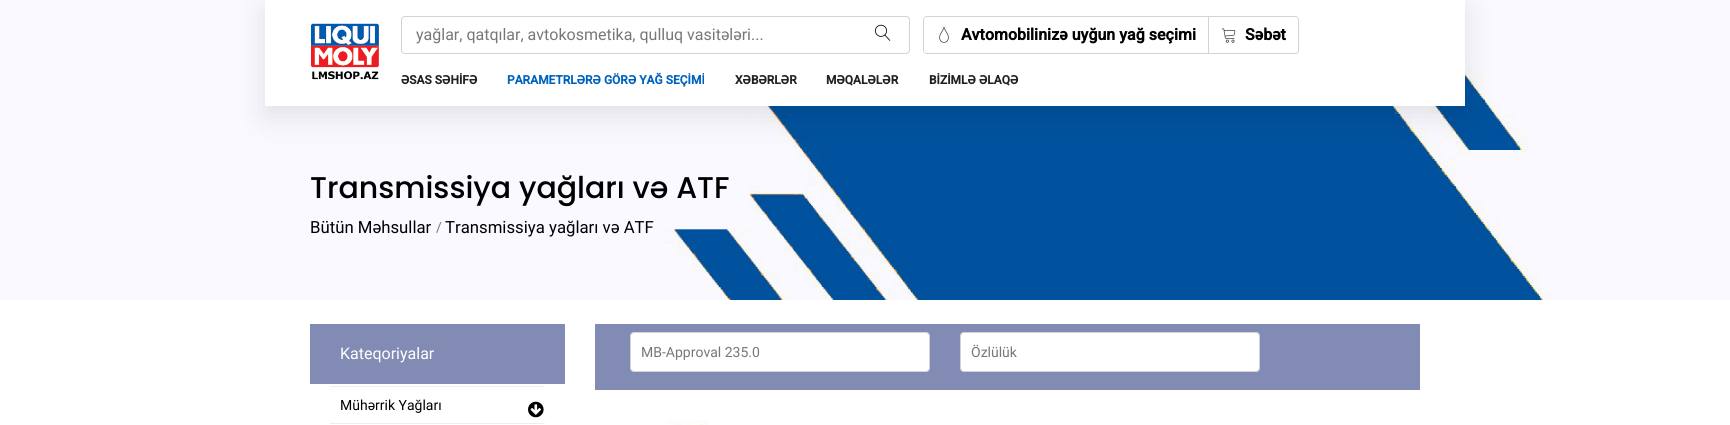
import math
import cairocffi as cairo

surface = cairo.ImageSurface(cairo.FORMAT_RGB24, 1730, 425)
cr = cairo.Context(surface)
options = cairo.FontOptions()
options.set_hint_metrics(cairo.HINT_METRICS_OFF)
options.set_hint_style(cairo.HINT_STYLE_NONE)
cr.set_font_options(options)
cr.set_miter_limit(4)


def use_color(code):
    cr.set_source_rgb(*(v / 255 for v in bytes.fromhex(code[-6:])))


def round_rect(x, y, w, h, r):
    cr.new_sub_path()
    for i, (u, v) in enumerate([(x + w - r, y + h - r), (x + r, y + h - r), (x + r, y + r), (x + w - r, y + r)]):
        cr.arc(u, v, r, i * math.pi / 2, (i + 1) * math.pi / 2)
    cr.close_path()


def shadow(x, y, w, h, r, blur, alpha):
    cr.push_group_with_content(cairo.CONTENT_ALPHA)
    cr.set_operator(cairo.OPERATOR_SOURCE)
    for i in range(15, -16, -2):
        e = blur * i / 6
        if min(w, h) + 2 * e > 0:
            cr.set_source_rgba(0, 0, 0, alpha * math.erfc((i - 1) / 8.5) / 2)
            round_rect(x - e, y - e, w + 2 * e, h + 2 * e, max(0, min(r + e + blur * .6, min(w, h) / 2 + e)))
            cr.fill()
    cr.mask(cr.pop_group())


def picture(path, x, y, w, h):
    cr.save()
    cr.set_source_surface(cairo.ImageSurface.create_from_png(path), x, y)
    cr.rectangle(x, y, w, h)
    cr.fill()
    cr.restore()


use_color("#ffffff")
cr.paint()
picture("img5.png", 0, 0, 1730, 300)
use_color("#000000")
shadow(265, 10, 1200, 106, 0, 15, 0.1)
use_color("#ffffff")
cr.rectangle(265, 0, 1200, 106)
cr.fill()
picture("img1.png", 311, 23, 68, 57)
round_rect(401.5, 16.5, 508, 37, 3.5)
use_color("#ced4da")
cr.set_line_width(1)
cr.stroke()
cr.select_font_face("Roboto")
cr.set_font_size(16)
use_color("#777777")
cr.move_to(416, 40)
cr.show_text("yağlar, qatqılar, avtokosmetika, qulluq vasitələri...")
picture("img2.png", 875, 24, 16, 17)
use_color("#ced4da")
cr.set_fill_rule(cairo.FILL_RULE_EVEN_ODD)
cr.new_path()
cr.move_to(927, 16)
cr.line_to(1208, 16)
cr.line_to(1208, 54)
cr.line_to(927, 54)
cr.curve_to(925, 54, 923, 52, 923, 50)
cr.line_to(923, 20)
cr.curve_to(923, 18, 925, 16, 927, 16)
cr.close_path()
cr.move_to(927, 17)
cr.line_to(1208, 17)
cr.line_to(1208, 53)
cr.line_to(927, 53)
cr.curve_to(925, 53, 924, 52, 924, 50)
cr.line_to(924, 20)
cr.curve_to(924, 18, 925, 17, 927, 17)
cr.close_path()
cr.fill()
picture("img3.png", 939, 26, 10, 17)
cr.select_font_face("Roboto", cairo.FONT_SLANT_NORMAL, cairo.FONT_WEIGHT_BOLD)
use_color("#000000")
cr.move_to(961, 40)
cr.show_text("Avtomobilinizə uyğun yağ seçimi")
cr.new_path()
cr.move_to(1208.5, 16.5)
cr.line_to(1295, 16.5)
cr.curve_to(1297, 16.5, 1298.5, 18, 1298.5, 20)
cr.line_to(1298.5, 50)
cr.curve_to(1298.5, 52, 1297, 53.5, 1295, 53.5)
cr.line_to(1208.5, 53.5)
cr.close_path()
use_color("#ced4da")
cr.stroke()
picture("img4.png", 1221, 28, 15, 15)
use_color("#000000")
cr.move_to(1245, 40)
cr.show_text("Səbət")
cr.set_font_size(12)
use_color("#222222")
cr.move_to(401, 84)
cr.show_text("ƏSAS SƏHİFƏ")
use_color("#0062bf")
cr.move_to(507, 84)
cr.show_text("PARAMETRLƏRƏ GÖRƏ YAĞ SEÇİMİ")
use_color("#222222")
cr.move_to(735, 84)
cr.show_text("XƏBƏRLƏR")
cr.move_to(826, 84)
cr.show_text("MƏQALƏLƏR")
cr.move_to(929, 84)
cr.show_text("BİZİMLƏ ƏLAQƏ")
cr.select_font_face("Poppins Medium")
cr.set_font_size(30)
use_color("#000000")
cr.move_to(310, 198)
cr.show_text("Transmissiya yağları və ATF")
cr.select_font_face("Roboto")
cr.set_font_size(16.75)
cr.move_to(310, 233)
cr.show_text("Bütün Məhsullar")
cr.set_font_size(14)
use_color("#777777")
cr.move_to(436, 232)
cr.show_text("/")
cr.set_font_size(16.75)
use_color("#000000")
cr.move_to(445, 233)
cr.show_text("Transmissiya yağları və ATF")
use_color("#828bb3")
cr.rectangle(310, 324, 255, 60)
cr.fill()
cr.set_font_size(16)
use_color("#ffffff")
cr.move_to(340, 359)
cr.show_text("Kateqoriyalar")
use_color("#eeeeee")
cr.rectangle(330, 386, 215, 1)
cr.fill()
picture("img6.png", 528, 401, 16, 17)
cr.rectangle(330, 423, 215, 1)
cr.fill()
cr.set_font_size(14)
use_color("#000000")
cr.move_to(340, 410)
cr.show_text("Mühərrik Yağları")
use_color("#828bb3")
cr.rectangle(595, 324, 825, 66)
cr.fill()
use_color("#ffffff")
round_rect(630.5, 332.5, 299, 39, 3.5)
cr.fill_preserve()
use_color("#ced4da")
cr.stroke()
use_color("#777777")
cr.move_to(641, 357)
cr.show_text("MB-Approval 235.0")
use_color("#ffffff")
round_rect(960.5, 332.5, 299, 39, 3.5)
cr.fill_preserve()
use_color("#ced4da")
cr.stroke()
use_color("#777777")
cr.move_to(971, 357)
cr.show_text("Özlülük")
picture("img7.png", 667, 420, 41, 5)
surface.write_to_png("result.png")
